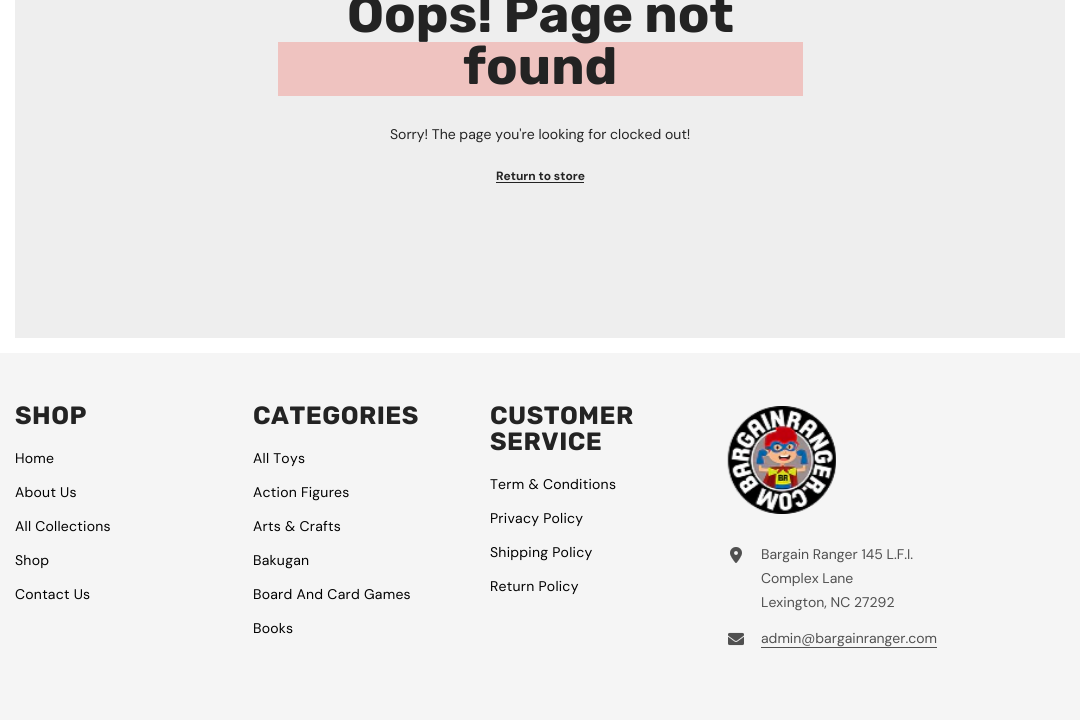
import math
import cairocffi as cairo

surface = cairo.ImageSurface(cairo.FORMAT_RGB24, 1080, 720)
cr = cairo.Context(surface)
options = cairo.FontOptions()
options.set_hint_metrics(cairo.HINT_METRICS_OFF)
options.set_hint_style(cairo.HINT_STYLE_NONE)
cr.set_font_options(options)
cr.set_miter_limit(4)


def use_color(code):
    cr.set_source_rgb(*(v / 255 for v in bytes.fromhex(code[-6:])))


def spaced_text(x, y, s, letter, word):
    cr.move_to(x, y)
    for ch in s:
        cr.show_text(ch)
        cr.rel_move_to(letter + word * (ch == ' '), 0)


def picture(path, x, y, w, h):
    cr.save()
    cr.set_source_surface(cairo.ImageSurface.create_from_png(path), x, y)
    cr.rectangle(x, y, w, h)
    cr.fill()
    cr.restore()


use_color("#ffffff")
cr.paint()
use_color("#eeeeee")
cr.rectangle(15, 0, 1050, 338)
cr.fill()
use_color("#efc3c0")
cr.rectangle(278, 42, 525, 54)
cr.fill()
cr.select_font_face("Rubik", cairo.FONT_SLANT_NORMAL, cairo.FONT_WEIGHT_BOLD)
cr.set_font_size(52)
use_color("#232323")
cr.move_to(347, 32)
cr.show_text("Oops! Page not")
cr.move_to(463, 84)
cr.show_text("found")
cr.select_font_face("DM Sans")
cr.set_font_size(14)
cr.move_to(390, 139)
cr.show_text("Sorry! The page you're looking for clocked out!")
cr.select_font_face("DM Sans", cairo.FONT_SLANT_NORMAL, cairo.FONT_WEIGHT_BOLD)
cr.set_font_size(12)
cr.move_to(496, 180)
cr.show_text("Return to store")
cr.rectangle(496, 182, 88, 1)
cr.fill()
use_color("#f5f5f5")
cr.rectangle(0, 353, 1080, 367)
cr.fill()
cr.select_font_face("Rubik", cairo.FONT_SLANT_NORMAL, cairo.FONT_WEIGHT_BOLD)
cr.set_font_size(25)
use_color("#232323")
spaced_text(15, 424, "SHOP", 0.5, 0)
cr.select_font_face("DM Sans")
cr.set_font_size(14)
use_color("#000000")
spaced_text(15, 463, "Home", 0.25, 0)
spaced_text(15, 497, "About Us", 0.25, 0)
spaced_text(15, 531, "All Collections", 0.25, 0)
spaced_text(15, 565, "Shop", 0.25, 0)
spaced_text(15, 599, "Contact Us", 0.25, 0)
cr.select_font_face("Rubik", cairo.FONT_SLANT_NORMAL, cairo.FONT_WEIGHT_BOLD)
cr.set_font_size(25)
use_color("#232323")
spaced_text(253, 424, "CATEGORIES", 0.5, 0)
cr.select_font_face("DM Sans")
cr.set_font_size(14)
use_color("#000000")
spaced_text(253, 463, "All Toys", 0.25, 0)
spaced_text(253, 497, "Action Figures", 0.25, 0)
spaced_text(253, 531, "Arts & Crafts", 0.25, 0)
spaced_text(253, 565, "Bakugan", 0.25, 0)
spaced_text(253, 599, "Board And Card Games", 0.25, 0)
spaced_text(253, 633, "Books", 0.25, 0)
cr.select_font_face("Rubik", cairo.FONT_SLANT_NORMAL, cairo.FONT_WEIGHT_BOLD)
cr.set_font_size(25)
use_color("#232323")
spaced_text(490, 424, "CUSTOMER", 0.5, 0)
spaced_text(490, 450, "SERVICE", 0.5, 0)
cr.select_font_face("DM Sans")
cr.set_font_size(14)
use_color("#000000")
spaced_text(490, 489, "Term & Conditions", 0.25, 0)
spaced_text(490, 523, "Privacy Policy", 0.25, 0)
spaced_text(490, 557, "Shipping Policy", 0.25, 0)
spaced_text(490, 591, "Return Policy", 0.25, 0)
picture("img1.png", 727, 406, 109, 108)
picture("img2.png", 730, 547, 12, 16)
use_color("#505050")
cr.move_to(761, 559)
cr.show_text("Bargain Ranger 145 L.F.I.")
cr.move_to(761, 583)
cr.show_text("Complex Lane")
cr.move_to(761, 607)
cr.show_text("Lexington, NC 27292")
picture("img3.png", 728, 632, 16, 14)
cr.move_to(761, 643)
cr.show_text("admin@bargainranger.com")
cr.rectangle(761, 647, 176, 1)
cr.fill()
surface.write_to_png("result.png")
